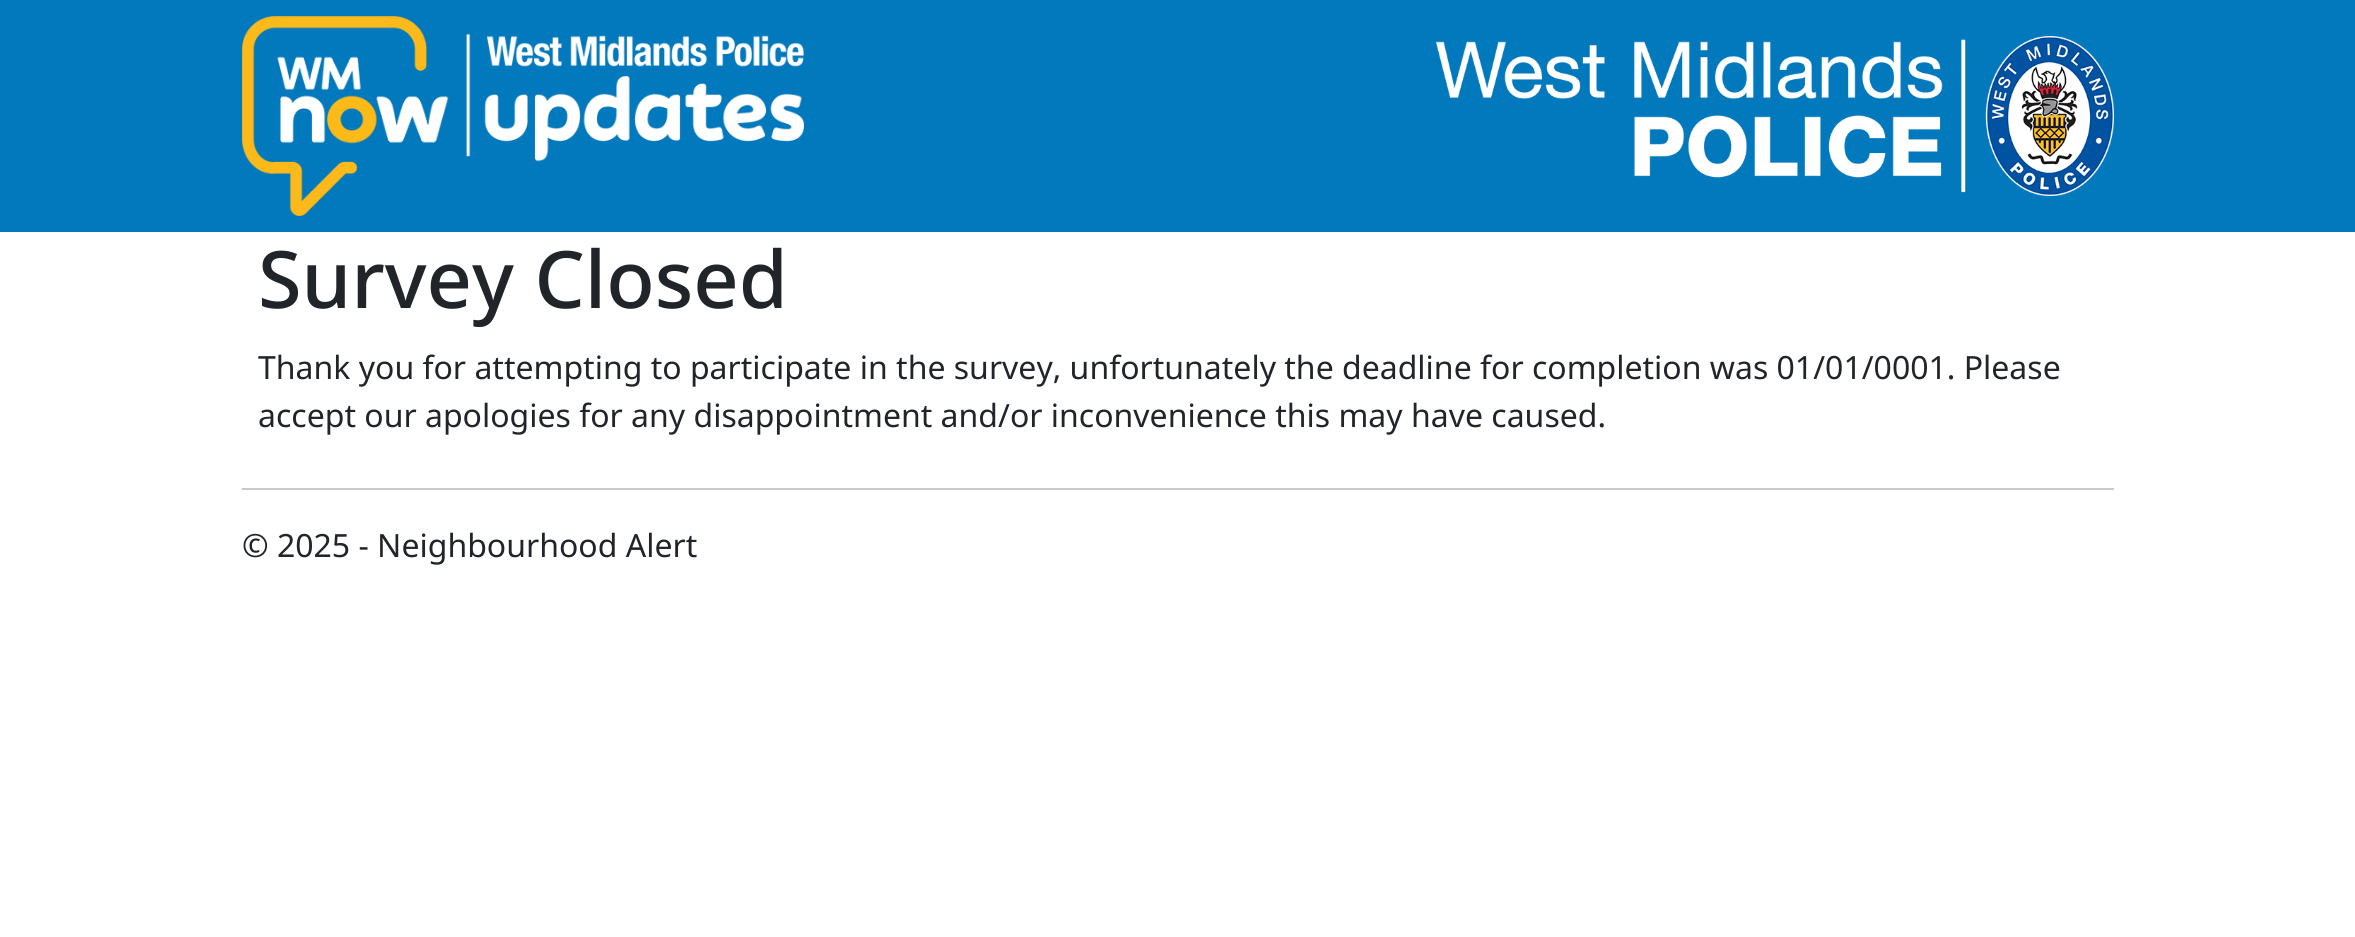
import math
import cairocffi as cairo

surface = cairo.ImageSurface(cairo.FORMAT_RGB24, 2355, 937)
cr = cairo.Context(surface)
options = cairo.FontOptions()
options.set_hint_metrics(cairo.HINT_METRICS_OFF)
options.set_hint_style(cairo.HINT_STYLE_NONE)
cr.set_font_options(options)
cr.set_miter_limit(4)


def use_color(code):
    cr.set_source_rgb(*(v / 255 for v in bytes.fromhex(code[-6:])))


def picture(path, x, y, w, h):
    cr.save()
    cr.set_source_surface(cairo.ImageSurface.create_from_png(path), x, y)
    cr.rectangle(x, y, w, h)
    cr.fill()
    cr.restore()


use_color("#ffffff")
cr.paint()
use_color("#0379bd")
cr.rectangle(0, 0, 2355, 232)
cr.fill()
picture("img1.png", 242, 16, 562, 200)
picture("img2.png", 1436, 36, 678, 160)
cr.select_font_face("Noto Sans Medium")
cr.set_font_size(79.25)
use_color("#212529")
cr.move_to(258, 308)
cr.show_text("Survey Closed")
cr.select_font_face("Noto Sans")
cr.set_font_size(32)
cr.move_to(258, 379)
cr.show_text("Thank you for attempting to participate in the survey, unfortunately the deadline for completion was 01/01/0001. Please")
cr.move_to(258, 427)
cr.show_text("accept our apologies for any disappointment and/or inconvenience this may have caused.")
use_color("#c8c9ca")
cr.rectangle(242, 488, 1872, 2)
cr.fill()
use_color("#212529")
cr.move_to(242, 557)
cr.show_text("© 2025 - Neighbourhood Alert")
surface.write_to_png("result.png")
